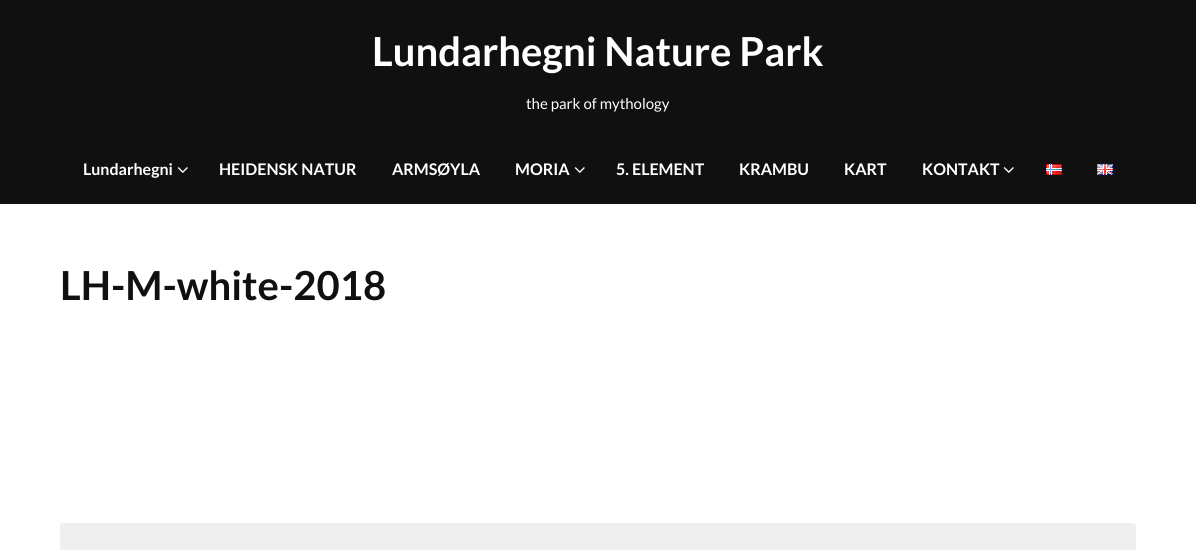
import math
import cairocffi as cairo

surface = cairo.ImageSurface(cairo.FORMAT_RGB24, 1196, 550)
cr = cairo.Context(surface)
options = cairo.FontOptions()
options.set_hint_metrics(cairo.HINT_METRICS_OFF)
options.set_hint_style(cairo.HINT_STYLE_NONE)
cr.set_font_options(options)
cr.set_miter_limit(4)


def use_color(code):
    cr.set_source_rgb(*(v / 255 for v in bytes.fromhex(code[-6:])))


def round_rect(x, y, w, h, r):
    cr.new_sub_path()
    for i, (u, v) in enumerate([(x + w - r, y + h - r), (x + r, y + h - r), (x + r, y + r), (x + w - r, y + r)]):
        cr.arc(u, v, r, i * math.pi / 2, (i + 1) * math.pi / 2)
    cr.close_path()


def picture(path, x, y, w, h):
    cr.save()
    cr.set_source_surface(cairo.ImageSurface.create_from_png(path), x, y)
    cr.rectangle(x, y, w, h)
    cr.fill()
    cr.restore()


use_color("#ffffff")
cr.paint()
use_color("#101010")
cr.rectangle(0, 0, 1196, 204)
cr.fill()
cr.select_font_face("Lato", cairo.FONT_SLANT_NORMAL, cairo.FONT_WEIGHT_BOLD)
cr.set_font_size(40)
use_color("#ffffff")
cr.move_to(372, 66)
cr.show_text("Lundarhegni Nature Park")
cr.select_font_face("Lato")
cr.set_font_size(15)
cr.move_to(526, 109)
cr.show_text("the park of mythology")
cr.select_font_face("Lato", cairo.FONT_SLANT_NORMAL, cairo.FONT_WEIGHT_BOLD)
cr.set_font_size(16)
cr.move_to(83, 175)
cr.show_text("Lundarhegni")
picture("img1.png", 177, 167, 11, 6)
cr.move_to(219, 175)
cr.show_text("HEIDENSK NATUR")
cr.move_to(392, 175)
cr.show_text("ARMSØYLA")
cr.move_to(515, 175)
cr.show_text("MORIA")
picture("img1.png", 574, 167, 11, 6)
cr.move_to(616, 175)
cr.show_text("5. ELEMENT")
cr.move_to(739, 175)
cr.show_text("KRAMBU")
cr.move_to(844, 175)
cr.show_text("KART")
cr.move_to(922, 175)
cr.show_text("KONTAKT")
picture("img1.png", 1003, 167, 11, 6)
picture("img2.png", 1046, 164, 16, 11)
picture("img3.png", 1097, 164, 16, 11)
cr.set_font_size(40)
use_color("#101010")
cr.move_to(60, 300)
cr.show_text("LH-M-white-2018")
use_color("#efefef")
round_rect(60, 523, 1076, 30, 3)
cr.fill()
surface.write_to_png("result.png")
